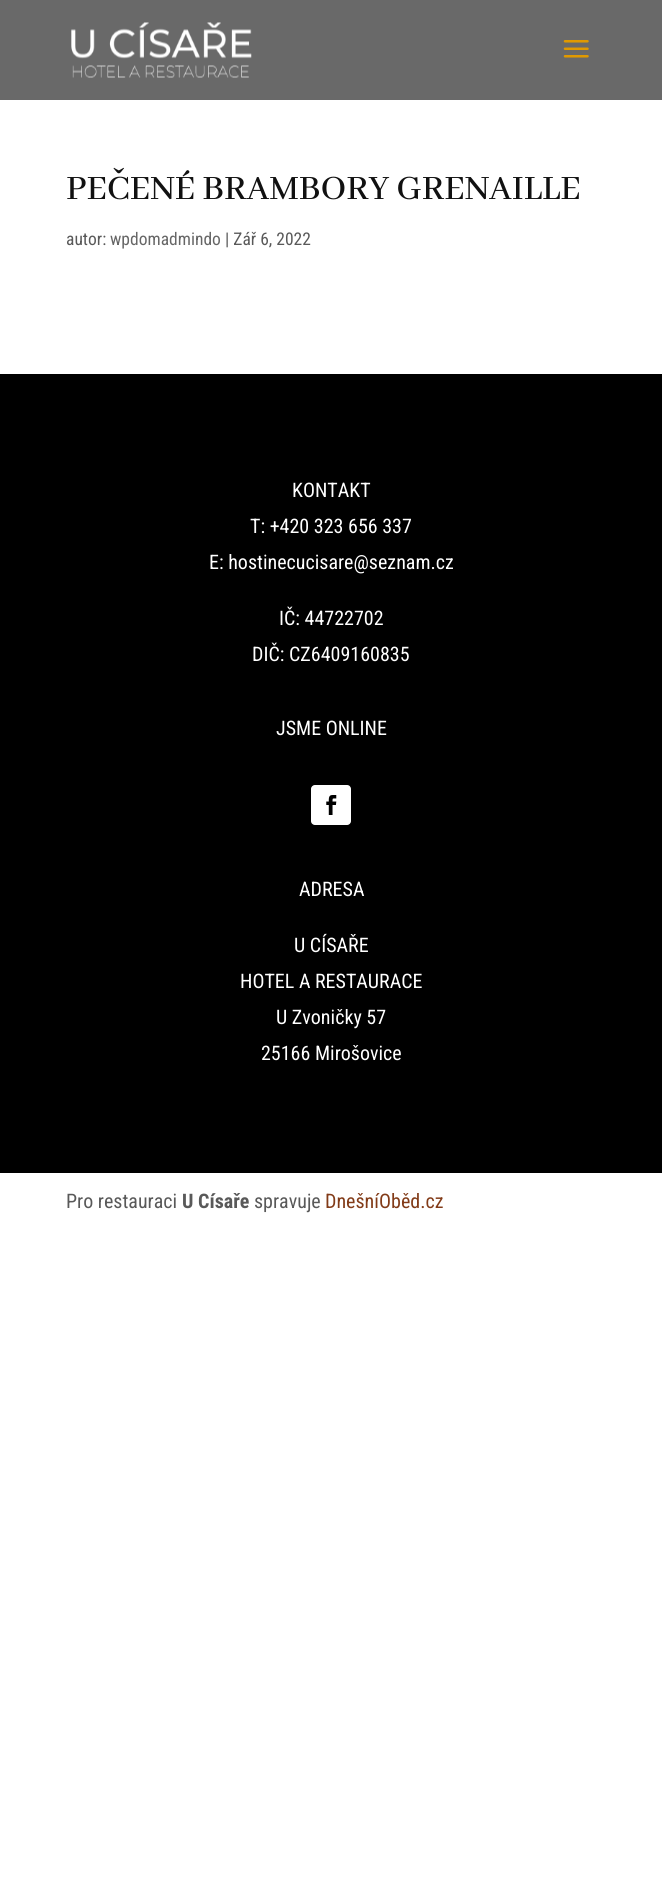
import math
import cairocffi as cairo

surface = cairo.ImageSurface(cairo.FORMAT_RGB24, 662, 1894)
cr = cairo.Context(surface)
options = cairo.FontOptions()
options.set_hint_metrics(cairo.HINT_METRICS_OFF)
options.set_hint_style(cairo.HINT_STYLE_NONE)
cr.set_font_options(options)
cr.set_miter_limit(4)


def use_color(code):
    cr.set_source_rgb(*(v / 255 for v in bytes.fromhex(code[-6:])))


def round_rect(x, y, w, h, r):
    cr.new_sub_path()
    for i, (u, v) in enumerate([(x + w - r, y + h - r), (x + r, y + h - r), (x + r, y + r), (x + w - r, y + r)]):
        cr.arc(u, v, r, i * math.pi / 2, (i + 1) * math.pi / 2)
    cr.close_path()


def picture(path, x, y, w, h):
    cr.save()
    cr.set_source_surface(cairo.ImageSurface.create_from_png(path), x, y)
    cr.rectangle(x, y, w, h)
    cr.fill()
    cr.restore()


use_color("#ffffff")
cr.paint()
use_color("#696969")
cr.rectangle(0, 0, 662, 100)
cr.fill()
picture("img1.png", 71, 22, 181, 56)
picture("img2.png", 563, 40, 26, 18)
cr.select_font_face("Abhaya Libre Medium Medium")
cr.set_font_size(37.5)
use_color("#111111")
cr.move_to(66, 199)
cr.show_text("PEČENÉ BRAMBORY GRENAILLE")
cr.select_font_face("Roboto Condensed")
cr.set_font_size(17.5)
use_color("#595959")
cr.move_to(66, 245)
cr.show_text("autor:")
use_color("#666666")
cr.move_to(110, 245)
cr.show_text("wpdomadmindo")
use_color("#595959")
cr.move_to(225, 245)
cr.show_text("| Zář 6, 2022")
use_color("#000000")
cr.rectangle(0, 374, 662, 799)
cr.fill()
cr.set_font_size(20)
use_color("#ffffff")
cr.move_to(292, 497)
cr.show_text("KONTAKT")
cr.move_to(250, 533)
cr.show_text("T: +420 323 656 337")
cr.move_to(209, 569)
cr.show_text("E: hostinecucisare@seznam.cz")
cr.move_to(279, 625)
cr.show_text("IČ: 44722702")
cr.move_to(252, 661)
cr.show_text("DIČ: CZ6409160835")
cr.move_to(276, 735)
cr.show_text("JSME ONLINE")
round_rect(311, 785, 40, 40, 4)
cr.fill()
picture("img3.png", 326, 795, 11, 20)
cr.move_to(299, 896)
cr.show_text("ADRESA")
cr.move_to(294, 952)
cr.show_text("U CÍSAŘE")
cr.move_to(240, 988)
cr.show_text("HOTEL A RESTAURACE")
cr.move_to(276, 1024)
cr.show_text("U Zvoničky 57")
cr.move_to(261, 1060)
cr.show_text("25166 Mirošovice")
use_color("#595959")
cr.move_to(66, 1208)
cr.show_text("Pro restauraci")
cr.select_font_face("Roboto Condensed", cairo.FONT_SLANT_NORMAL, cairo.FONT_WEIGHT_BOLD)
cr.move_to(182, 1208)
cr.show_text("U Císaře")
cr.select_font_face("Roboto Condensed")
cr.move_to(254, 1208)
cr.show_text("spravuje")
use_color("#823b18")
cr.move_to(325, 1208)
cr.show_text("DnešníOběd.cz")
surface.write_to_png("result.png")
